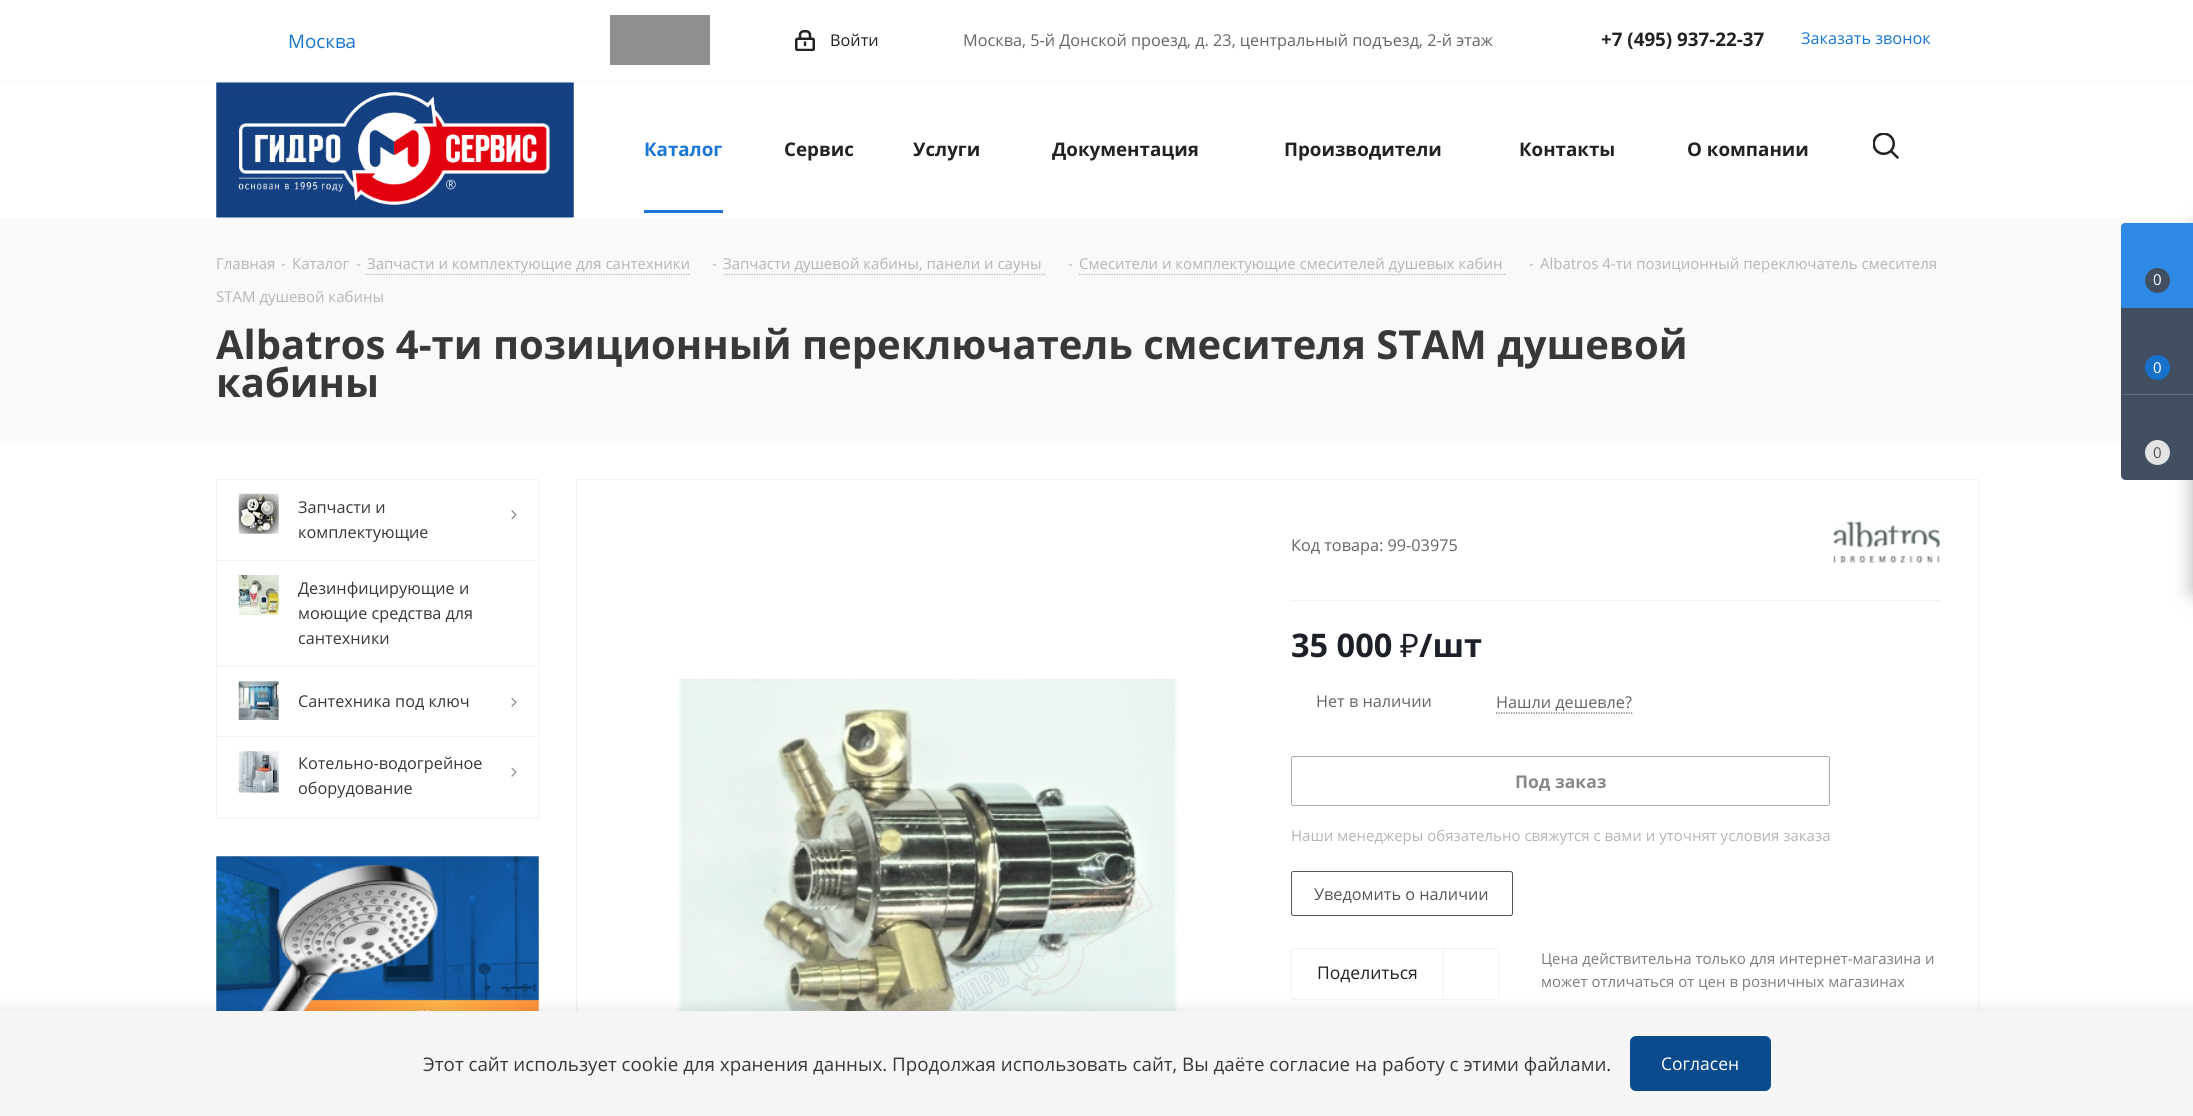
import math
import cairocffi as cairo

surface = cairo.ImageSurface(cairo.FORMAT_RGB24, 2193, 1116)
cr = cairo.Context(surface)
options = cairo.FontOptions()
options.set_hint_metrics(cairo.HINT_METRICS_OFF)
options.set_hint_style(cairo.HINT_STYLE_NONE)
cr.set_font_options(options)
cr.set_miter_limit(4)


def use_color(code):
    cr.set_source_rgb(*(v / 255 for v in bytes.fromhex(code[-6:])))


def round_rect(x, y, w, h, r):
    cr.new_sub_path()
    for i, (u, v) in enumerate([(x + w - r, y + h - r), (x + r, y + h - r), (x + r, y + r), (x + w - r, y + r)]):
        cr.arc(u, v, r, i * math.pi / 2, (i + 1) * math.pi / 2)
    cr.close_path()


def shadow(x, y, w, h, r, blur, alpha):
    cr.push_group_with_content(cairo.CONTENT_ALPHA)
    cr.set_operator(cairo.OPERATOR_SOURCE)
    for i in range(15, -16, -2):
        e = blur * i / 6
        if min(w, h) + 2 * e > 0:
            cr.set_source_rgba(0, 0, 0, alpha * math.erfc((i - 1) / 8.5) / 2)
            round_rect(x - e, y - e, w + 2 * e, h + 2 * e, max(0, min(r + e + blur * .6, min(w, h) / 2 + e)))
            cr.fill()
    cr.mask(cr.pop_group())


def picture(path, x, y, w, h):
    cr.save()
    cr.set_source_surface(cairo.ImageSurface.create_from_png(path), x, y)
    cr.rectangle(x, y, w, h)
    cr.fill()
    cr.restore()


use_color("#ffffff")
cr.paint()
use_color("#f6f6f6")
cr.rectangle(0, 81, 2193, 1)
cr.fill()
cr.select_font_face("Open Sans")
cr.set_font_size(18.75)
use_color("#1976d2")
cr.move_to(288, 48)
cr.show_text("Москва")
use_color("#909090")
cr.rectangle(610, 15, 100, 50)
cr.fill()
picture("img1.png", 795, 30, 20, 21)
cr.set_font_size(16.25)
use_color("#222222")
cr.move_to(830, 46)
cr.show_text("Войти")
use_color("#666666")
cr.move_to(963, 46)
cr.show_text("Москва, 5-й Донской проезд, д. 23, центральный подъезд, 2-й этаж")
cr.select_font_face("Open Sans", cairo.FONT_SLANT_NORMAL, cairo.FONT_WEIGHT_BOLD)
cr.set_font_size(18.75)
use_color("#222222")
cr.move_to(1601, 46)
cr.show_text("+7 (495) 937-22-37")
cr.select_font_face("Open Sans")
cr.set_font_size(16.25)
use_color("#1976d2")
cr.move_to(1801, 44)
cr.show_text("Заказать звонок")
picture("img2.png", 216, 82, 358, 136)
cr.select_font_face("Open Sans", cairo.FONT_SLANT_NORMAL, cairo.FONT_WEIGHT_BOLD)
cr.set_font_size(18.75)
cr.move_to(644, 156)
cr.show_text("Каталог")
cr.rectangle(644, 210, 79, 3)
cr.fill()
use_color("#222222")
cr.move_to(784, 156)
cr.show_text("Сервис")
cr.move_to(913, 156)
cr.show_text("Услуги")
cr.move_to(1052, 156)
cr.show_text("Документация")
cr.move_to(1284, 156)
cr.show_text("Производители")
cr.move_to(1519, 156)
cr.show_text("Контакты")
cr.move_to(1687, 156)
cr.show_text("О компании")
picture("img3.png", 1873, 133, 26, 26)
use_color("#f9f9f9")
cr.rectangle(0, 218, 2193, 223)
cr.fill()
cr.select_font_face("Open Sans")
cr.set_font_size(15)
use_color("#b6b5b5")
cr.move_to(216, 269)
cr.show_text("Главная")
cr.move_to(281, 269)
cr.show_text("-")
cr.move_to(292, 269)
cr.show_text("Каталог")
cr.move_to(356, 269)
cr.show_text("-")
cr.move_to(367, 269)
cr.show_text("Запчасти и комплектующие для сантехники")
cr.new_path()
cr.move_to(366, 274.5)
cr.line_to(690, 274.5)
use_color("#b4b4b4")
cr.set_line_width(1.2)
cr.set_dash([1.25, 1.25])
cr.stroke()
use_color("#b6b5b5")
cr.move_to(712, 269)
cr.show_text("-")
cr.move_to(723, 269)
cr.show_text("Запчасти душевой кабины, панели и сауны")
cr.new_path()
cr.move_to(724, 274.5)
cr.line_to(1046, 274.5)
use_color("#b4b4b4")
cr.stroke()
use_color("#b6b5b5")
cr.move_to(1068, 269)
cr.show_text("-")
cr.move_to(1079, 269)
cr.show_text("Смесители и комплектующие смесителей душевых кабин")
cr.new_path()
cr.move_to(1079, 274.5)
cr.line_to(1506, 274.5)
use_color("#b4b4b4")
cr.stroke()
use_color("#b6b5b5")
cr.move_to(1529, 269)
cr.show_text("-")
cr.move_to(1540, 269)
cr.show_text("Albatros 4-ти позиционный переключатель смесителя")
cr.move_to(216, 302)
cr.show_text("STAM душевой кабины")
cr.select_font_face("Open Sans", cairo.FONT_SLANT_NORMAL, cairo.FONT_WEIGHT_BOLD)
cr.set_font_size(40)
use_color("#383838")
cr.move_to(216, 359)
cr.show_text("Albatros 4-ти позиционный переключатель смесителя STAM душевой")
cr.move_to(216, 397)
cr.show_text("кабины")
use_color("#f2f2f2")
cr.rectangle(216, 479, 323, 1)
cr.fill()
cr.rectangle(538, 479, 1, 81)
cr.fill()
cr.rectangle(216, 479, 1, 81)
cr.fill()
picture("img4.png", 238, 493, 41, 41)
cr.select_font_face("Open Sans")
cr.set_font_size(16.25)
use_color("#383838")
cr.move_to(298, 513)
cr.show_text("Запчасти и")
cr.move_to(298, 538)
cr.show_text("комплектующие")
picture("img5.png", 511, 510, 6, 10)
use_color("#f2f2f2")
cr.rectangle(216, 560, 323, 1)
cr.fill()
cr.rectangle(538, 560, 1, 106)
cr.fill()
cr.rectangle(216, 560, 1, 106)
cr.fill()
picture("img6.png", 238, 575, 41, 40)
use_color("#383838")
cr.move_to(298, 594)
cr.show_text("Дезинфицирующие и")
cr.move_to(298, 619)
cr.show_text("моющие средства для")
cr.move_to(298, 644)
cr.show_text("сантехники")
use_color("#f2f2f2")
cr.rectangle(216, 666, 323, 1)
cr.fill()
cr.rectangle(538, 666, 1, 70)
cr.fill()
cr.rectangle(216, 666, 1, 70)
cr.fill()
picture("img7.png", 238, 681, 41, 39)
use_color("#383838")
cr.move_to(298, 707)
cr.show_text("Сантехника под ключ")
picture("img8.png", 511, 697, 6, 10)
cr.rectangle(216.5, 736.5, 322, 82)
use_color("#f2f2f2")
cr.set_line_width(1)
cr.set_dash([])
cr.stroke()
picture("img9.png", 238, 751, 41, 42)
use_color("#383838")
cr.move_to(298, 769)
cr.show_text("Котельно-водогрейное")
cr.move_to(298, 794)
cr.show_text("оборудование")
picture("img8.png", 511, 767, 6, 10)
picture("img10.png", 216, 856, 323, 155)
cr.rectangle(576.5, 479.5, 1402, 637)
use_color("#f2f2f2")
cr.stroke()
picture("img11.png", 677, 678, 500, 333)
cr.rectangle(1291, 600, 649, 1)
cr.fill()
use_color("#666666")
cr.move_to(1291, 551)
cr.show_text("Код товара: 99-03975")
picture("img12.png", 1833, 521, 107, 42)
cr.select_font_face("Open Sans", cairo.FONT_SLANT_NORMAL, cairo.FONT_WEIGHT_BOLD)
cr.set_font_size(32.5)
use_color("#1d2029")
cr.move_to(1291, 657)
cr.show_text("35 000")
cr.select_font_face("Noto Sans")
cr.move_to(1400, 657)
cr.show_text("₽")
cr.select_font_face("Open Sans", cairo.FONT_SLANT_NORMAL, cairo.FONT_WEIGHT_BOLD)
cr.move_to(1419, 657)
cr.show_text("/шт")
cr.select_font_face("Open Sans")
cr.set_font_size(16.25)
use_color("#666666")
cr.move_to(1316, 707)
cr.show_text("Нет в наличии")
cr.move_to(1496, 708)
cr.show_text("Нашли дешевле?")
cr.new_path()
cr.move_to(1496, 713)
cr.line_to(1632.5, 713)
cr.set_line_width(1.2)
cr.set_dash([1.25, 1.25])
cr.stroke()
round_rect(1291.5, 756.5, 538, 49, 2)
use_color("#aaaaaa")
cr.set_line_width(1)
cr.set_dash([])
cr.stroke()
cr.save()
cr.rectangle(1515, 771, 91, 20)
cr.clip()
cr.select_font_face("Open Sans", cairo.FONT_SLANT_NORMAL, cairo.FONT_WEIGHT_BOLD)
cr.set_font_size(17.5)
use_color("#888888")
cr.move_to(1515, 788)
cr.show_text("Под заказ")
cr.restore()
cr.set_font_size(15)
use_color("#b6b5b5")
cr.move_to(1291, 841)
cr.show_text("Наши менеджеры обязательно свяжутся с вами и уточнят условия заказа")
round_rect(1291.5, 871.5, 221, 44, 2)
use_color("#555555")
cr.stroke()
cr.set_font_size(16.25)
cr.move_to(1314, 900)
cr.show_text("Уведомить о наличии")
use_color("#f2f2f2")
cr.rectangle(1443, 948, 1, 52)
cr.fill()
round_rect(1291.5, 948.5, 207, 51, 2)
cr.stroke()
cr.set_font_size(17.5)
use_color("#222222")
cr.move_to(1317, 979)
cr.show_text("Поделиться")
cr.set_font_size(15)
use_color("#7d7d7d")
cr.move_to(1541, 964)
cr.show_text("Цена действительна только для интернет-магазина и")
cr.move_to(1541, 987)
cr.show_text("может отличаться от цен в розничных магазинах")
use_color("#2c2c2c")
shadow(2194, 230, 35, 364, 2.5, 11, 0.4)
use_color("#424f60")
cr.new_path()
cr.move_to(2126, 223)
cr.line_to(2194, 223)
cr.line_to(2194, 480)
cr.line_to(2126, 480)
cr.curve_to(2123, 480, 2121, 478, 2121, 475)
cr.line_to(2121, 228)
cr.curve_to(2121, 225, 2123, 223, 2126, 223)
cr.close_path()
cr.fill()
use_color("#2e8ae6")
cr.new_path()
cr.move_to(2126, 223)
cr.line_to(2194, 223)
cr.line_to(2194, 308)
cr.line_to(2121, 308)
cr.line_to(2121, 228)
cr.curve_to(2121, 225, 2123, 223, 2126, 223)
cr.close_path()
cr.fill()
use_color("#424f60")
cr.arc(2157.5, 280.5, 12.5, 0, 2 * math.pi)
cr.fill()
use_color("#ffffff")
cr.move_to(2153, 285)
cr.show_text("0")
use_color("#1771ca")
cr.new_path()
cr.arc(2157.5, 367.5, 12.5, 0, 2 * math.pi)
cr.fill()
use_color("#ffffff")
cr.move_to(2153, 373)
cr.show_text("0")
use_color("#636f7d")
cr.rectangle(2121, 394, 72, 1)
cr.fill()
use_color("#e3e3e3")
cr.arc(2157.5, 452.5, 12.5, 0, 2 * math.pi)
cr.fill()
use_color("#555555")
cr.move_to(2153, 458)
cr.show_text("0")
use_color("#000000")
shadow(0, 1009, 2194, 105, 0, 6, 0.1)
use_color("#f5f5f5")
cr.rectangle(0, 1011, 2193, 105)
cr.fill()
cr.set_font_size(18.75)
use_color("#383838")
cr.move_to(423, 1071)
cr.show_text("Этот сайт использует cookie для хранения данных. Продолжая использовать сайт, Вы даёте согласие на работу с этими файлами.")
use_color("#0a4b8d")
round_rect(1630, 1036, 141, 55, 6)
cr.fill()
cr.set_font_size(17.5)
use_color("#ffffff")
cr.move_to(1661, 1070)
cr.show_text("Согласен")
surface.write_to_png("result.png")
